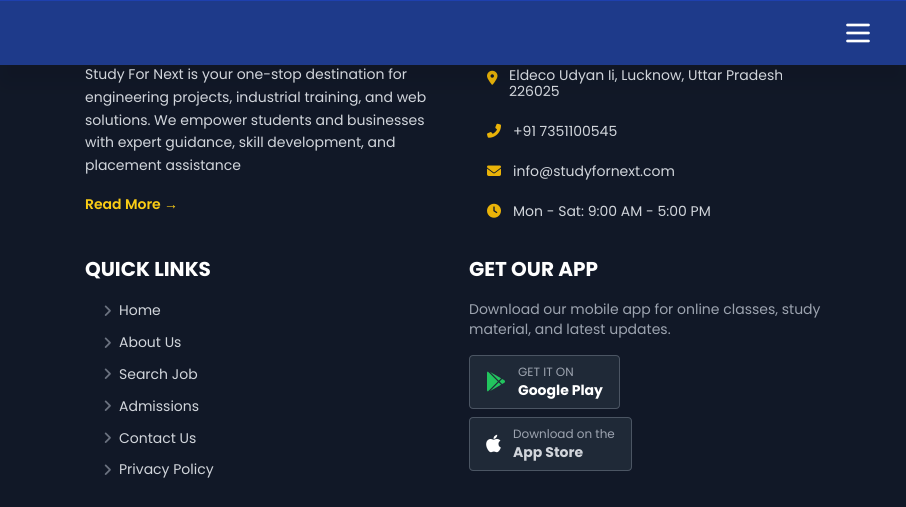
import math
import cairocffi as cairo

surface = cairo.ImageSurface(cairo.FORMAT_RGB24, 906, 507)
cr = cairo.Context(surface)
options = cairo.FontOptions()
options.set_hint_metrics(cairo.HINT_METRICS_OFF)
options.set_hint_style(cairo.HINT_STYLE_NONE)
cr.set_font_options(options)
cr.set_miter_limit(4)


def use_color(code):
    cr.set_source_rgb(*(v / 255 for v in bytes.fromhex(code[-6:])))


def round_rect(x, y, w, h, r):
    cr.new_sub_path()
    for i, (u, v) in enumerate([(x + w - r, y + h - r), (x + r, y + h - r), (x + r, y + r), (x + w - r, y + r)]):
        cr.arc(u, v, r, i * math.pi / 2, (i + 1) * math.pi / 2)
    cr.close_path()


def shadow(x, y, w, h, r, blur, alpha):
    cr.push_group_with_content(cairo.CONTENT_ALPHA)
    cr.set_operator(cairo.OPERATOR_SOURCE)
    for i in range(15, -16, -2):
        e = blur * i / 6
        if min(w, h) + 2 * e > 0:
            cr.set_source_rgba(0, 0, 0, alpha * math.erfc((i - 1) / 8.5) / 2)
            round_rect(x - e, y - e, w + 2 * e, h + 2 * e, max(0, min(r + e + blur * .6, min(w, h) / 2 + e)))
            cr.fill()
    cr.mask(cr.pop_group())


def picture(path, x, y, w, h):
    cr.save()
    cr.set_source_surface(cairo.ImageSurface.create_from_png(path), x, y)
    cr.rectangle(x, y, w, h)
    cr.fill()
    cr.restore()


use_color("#111827")
cr.paint()
picture("img1.png", 487, 70, 11, 15)
use_color("#000000")
shadow(5, 25, 896, 55, 0, 12.5, 0.1)
use_color("#1e3a8a")
cr.rectangle(0, 1, 906, 64)
cr.fill()
use_color("#1e40af")
cr.rectangle(0, 0, 906, 1)
cr.fill()
cr.new_path()
cr.move_to(847.5, 25)
cr.line_to(868.5, 25)
cr.move_to(847.5, 33)
cr.line_to(868.5, 33)
cr.move_to(847.5, 41)
cr.line_to(868.5, 41)
use_color("#ffffff")
cr.set_line_width(2.7)
cr.set_line_cap(cairo.LINE_CAP_ROUND)
cr.set_line_join(cairo.LINE_JOIN_ROUND)
cr.stroke()
cr.select_font_face("Poppins")
cr.set_font_size(14)
use_color("#d1d5db")
cr.move_to(85, 79)
cr.show_text("Study For Next is your one-stop destination for")
cr.move_to(85, 102)
cr.show_text("engineering projects, industrial training, and web")
cr.move_to(85, 125)
cr.show_text("solutions. We empower students and businesses")
cr.move_to(85, 147)
cr.show_text("with expert guidance, skill development, and")
cr.move_to(85, 170)
cr.show_text("placement assistance")
cr.select_font_face("Poppins SemiBold")
use_color("#facc15")
cr.move_to(85, 209)
cr.show_text("Read More")
cr.select_font_face("Liberation Sans", cairo.FONT_SLANT_NORMAL, cairo.FONT_WEIGHT_BOLD)
cr.move_to(164, 209)
cr.show_text("→")
cr.select_font_face("Poppins")
use_color("#d1d5db")
cr.move_to(509, 80)
cr.show_text("Eldeco Udyan Ii, Lucknow, Uttar Pradesh")
cr.move_to(509, 96)
cr.show_text("226025")
picture("img2.png", 487, 123, 14, 15)
cr.move_to(513, 136)
cr.show_text("+91 7351100545")
picture("img3.png", 487, 165, 14, 11)
cr.move_to(513, 176)
cr.show_text("info@studyfornext.com")
picture("img4.png", 487, 203, 14, 15)
cr.move_to(513, 216)
cr.show_text("Mon - Sat: 9:00 AM - 5:00 PM")
cr.select_font_face("Poppins", cairo.FONT_SLANT_NORMAL, cairo.FONT_WEIGHT_BOLD)
cr.set_font_size(20)
use_color("#ffffff")
cr.move_to(85, 276)
cr.show_text("QUICK LINKS")
picture("img5.png", 104, 305, 7, 11)
cr.select_font_face("Poppins")
cr.set_font_size(14)
use_color("#d1d5db")
cr.move_to(119, 315)
cr.show_text("Home")
picture("img5.png", 104, 337, 7, 11)
cr.move_to(119, 347)
cr.show_text("About Us")
picture("img5.png", 104, 368, 7, 11)
cr.move_to(119, 379)
cr.show_text("Search Job")
picture("img5.png", 104, 400, 7, 11)
cr.move_to(119, 411)
cr.show_text("Admissions")
picture("img5.png", 104, 432, 7, 11)
cr.move_to(119, 443)
cr.show_text("Contact Us")
picture("img5.png", 104, 464, 7, 11)
cr.move_to(119, 474)
cr.show_text("Privacy Policy")
cr.select_font_face("Poppins", cairo.FONT_SLANT_NORMAL, cairo.FONT_WEIGHT_BOLD)
cr.set_font_size(20)
use_color("#ffffff")
cr.move_to(469, 276)
cr.show_text("GET OUR APP")
cr.select_font_face("Poppins")
cr.set_font_size(14)
use_color("#9ca3af")
cr.move_to(469, 314)
cr.show_text("Download our mobile app for online classes, study")
cr.move_to(469, 334)
cr.show_text("material, and latest updates.")
use_color("#1f2937")
round_rect(469.5, 355.5, 150, 53, 3.5)
cr.fill_preserve()
use_color("#4b5563")
cr.set_line_width(1)
cr.set_line_cap(cairo.LINE_CAP_BUTT)
cr.set_line_join(cairo.LINE_JOIN_MITER)
cr.stroke()
picture("img6.png", 487, 371, 18, 21)
cr.set_font_size(12)
use_color("#9ca3af")
cr.move_to(518, 376)
cr.show_text("GET IT ON")
cr.select_font_face("Poppins", cairo.FONT_SLANT_NORMAL, cairo.FONT_WEIGHT_BOLD)
cr.set_font_size(14)
use_color("#ffffff")
cr.move_to(518, 395)
cr.show_text("Google Play")
use_color("#1f2937")
round_rect(469.5, 417.5, 162, 53, 3.5)
cr.fill_preserve()
use_color("#4b5563")
cr.stroke()
picture("img7.png", 486, 434, 15, 19)
cr.select_font_face("Poppins")
cr.set_font_size(12)
use_color("#9ca3af")
cr.move_to(513, 438)
cr.show_text("Download on the")
cr.select_font_face("Poppins", cairo.FONT_SLANT_NORMAL, cairo.FONT_WEIGHT_BOLD)
cr.set_font_size(14)
use_color("#d1d5db")
cr.move_to(513, 457)
cr.show_text("App Store")
surface.write_to_png("result.png")
